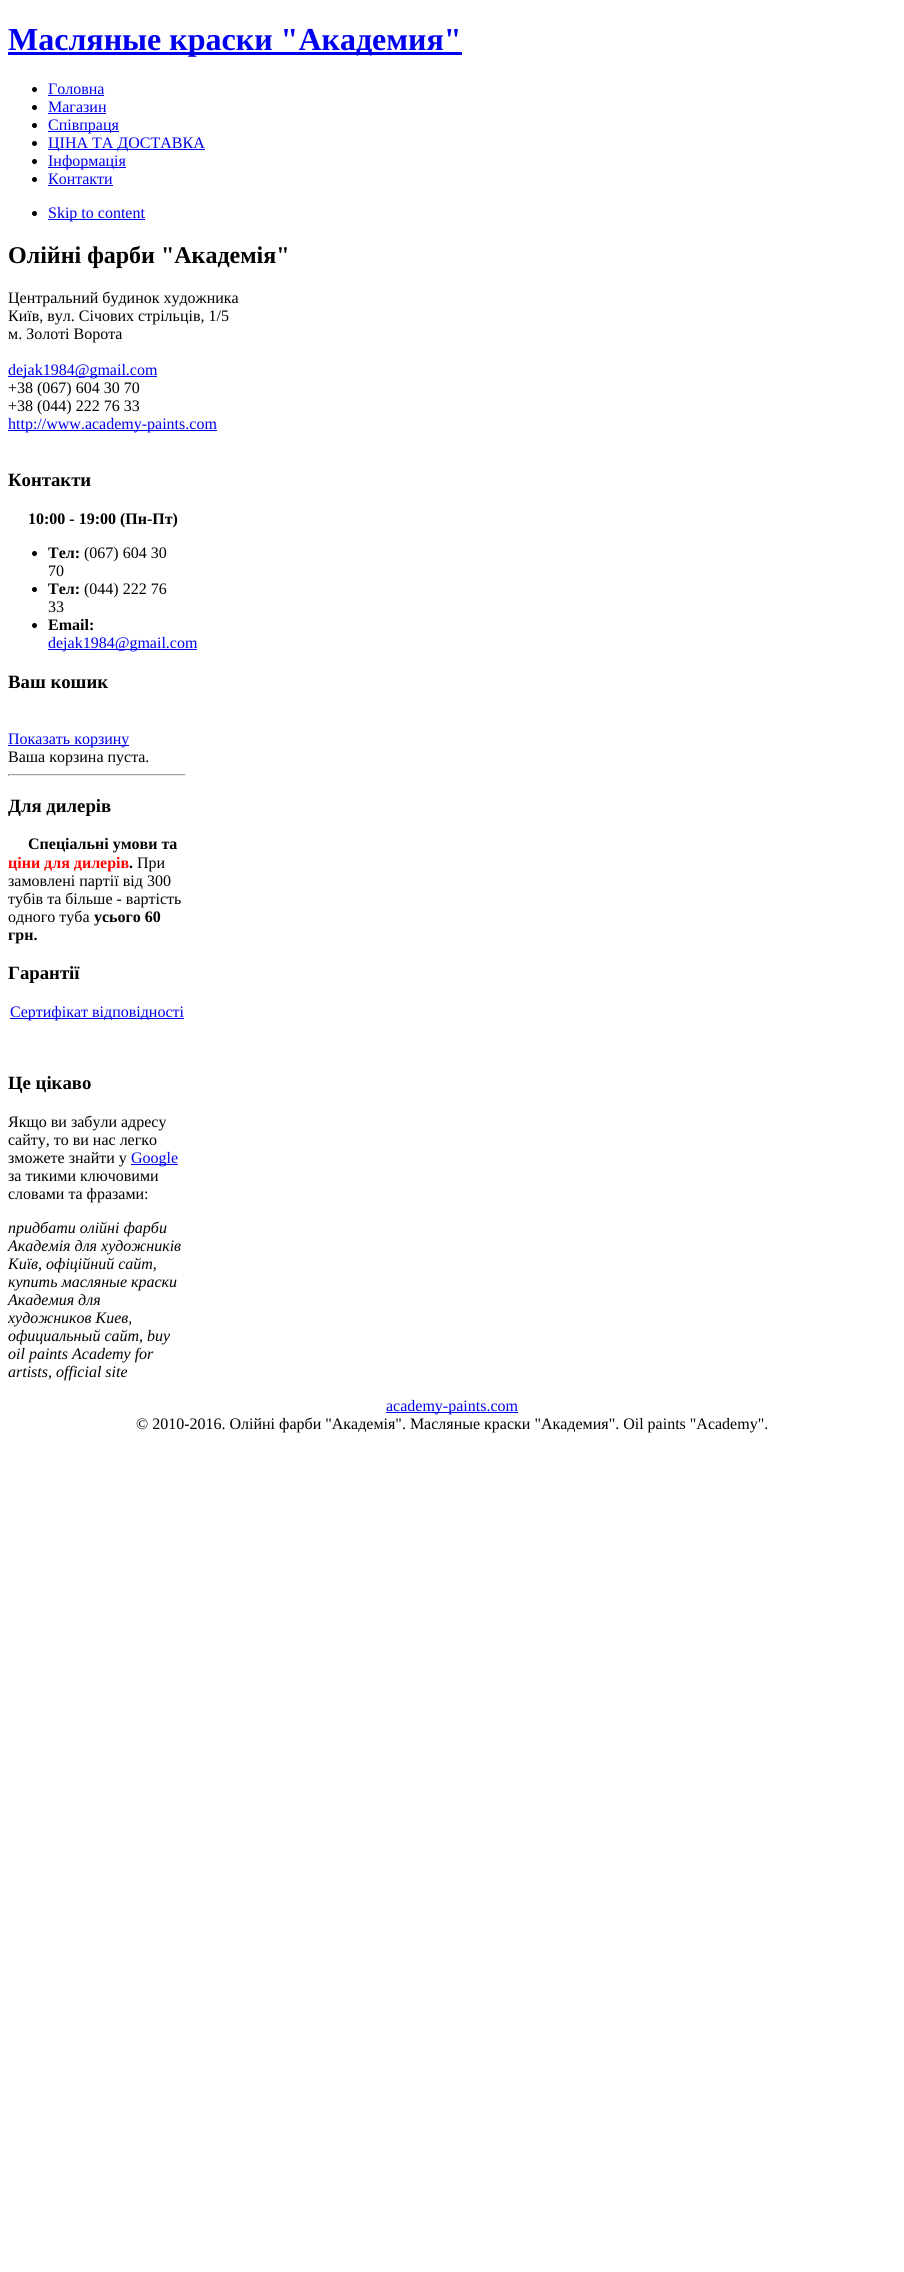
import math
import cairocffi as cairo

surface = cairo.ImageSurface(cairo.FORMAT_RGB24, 904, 2272)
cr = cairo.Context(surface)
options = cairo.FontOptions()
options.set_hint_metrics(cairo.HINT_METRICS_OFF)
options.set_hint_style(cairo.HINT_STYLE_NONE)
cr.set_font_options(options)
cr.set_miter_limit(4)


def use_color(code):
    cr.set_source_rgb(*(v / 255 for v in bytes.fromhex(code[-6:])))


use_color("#ffffff")
cr.paint()
use_color("#0000ee")
cr.rectangle(8, 52, 454, 3)
cr.fill()
cr.select_font_face("Liberation Serif", cairo.FONT_SLANT_NORMAL, cairo.FONT_WEIGHT_BOLD)
cr.set_font_size(32)
cr.move_to(8, 50)
cr.show_text("Масляные краски \"Академия\"")
use_color("#000000")
cr.new_path()
cr.arc(34.5, 89.5, 2.5, 0, 2 * math.pi)
cr.fill()
cr.select_font_face("Liberation Serif")
cr.set_font_size(16)
use_color("#0000ee")
cr.move_to(48, 94)
cr.show_text("Головна")
cr.rectangle(48, 95, 56, 1)
cr.fill()
use_color("#000000")
cr.arc(34.5, 107.5, 2.5, 0, 2 * math.pi)
cr.fill()
use_color("#0000ee")
cr.move_to(48, 112)
cr.show_text("Магазин")
cr.rectangle(48, 113, 58, 1)
cr.fill()
use_color("#000000")
cr.arc(34.5, 125.5, 2.5, 0, 2 * math.pi)
cr.fill()
use_color("#0000ee")
cr.rectangle(48, 131, 71, 1)
cr.fill()
cr.move_to(48, 130)
cr.show_text("Співпраця")
use_color("#000000")
cr.new_path()
cr.arc(34.5, 143.5, 2.5, 0, 2 * math.pi)
cr.fill()
use_color("#0000ee")
cr.rectangle(48, 149, 157, 1)
cr.fill()
cr.move_to(48, 148)
cr.show_text("ЦІНА ТА ДОСТАВКА")
use_color("#000000")
cr.new_path()
cr.arc(34.5, 161.5, 2.5, 0, 2 * math.pi)
cr.fill()
use_color("#0000ee")
cr.rectangle(48, 167, 78, 1)
cr.fill()
cr.move_to(48, 166)
cr.show_text("Інформація")
use_color("#000000")
cr.new_path()
cr.arc(34.5, 179.5, 2.5, 0, 2 * math.pi)
cr.fill()
use_color("#0000ee")
cr.move_to(48, 184)
cr.show_text("Контакти")
cr.rectangle(48, 185, 65, 1)
cr.fill()
use_color("#000000")
cr.arc(34.5, 213.5, 2.5, 0, 2 * math.pi)
cr.fill()
use_color("#0000ee")
cr.rectangle(48, 219, 97, 1)
cr.fill()
cr.move_to(48, 218)
cr.show_text("Skip to content")
cr.select_font_face("Liberation Serif", cairo.FONT_SLANT_NORMAL, cairo.FONT_WEIGHT_BOLD)
cr.set_font_size(24)
use_color("#000000")
cr.move_to(8, 263)
cr.show_text("Олійні фарби \"Академія\"")
cr.select_font_face("Liberation Serif")
cr.set_font_size(16)
cr.move_to(8, 303)
cr.show_text("Центральний будинок художника")
cr.move_to(8, 321)
cr.show_text("Київ, вул. Січових стрільців, 1/5")
cr.move_to(8, 339)
cr.show_text("м. Золоті Ворота")
use_color("#0000ee")
cr.rectangle(8, 376, 149, 1)
cr.fill()
cr.move_to(8, 375)
cr.show_text("dejak1984@gmail.com")
use_color("#000000")
cr.move_to(8, 393)
cr.show_text("+38 (067) 604 30 70")
cr.move_to(8, 411)
cr.show_text("+38 (044) 222 76 33")
use_color("#0000ee")
cr.rectangle(8, 430, 209, 1)
cr.fill()
cr.move_to(8, 429)
cr.show_text("http://www.academy-paints.com")
cr.select_font_face("Liberation Serif", cairo.FONT_SLANT_NORMAL, cairo.FONT_WEIGHT_BOLD)
cr.set_font_size(18.75)
use_color("#000000")
cr.move_to(8, 486)
cr.show_text("Контакти")
cr.set_font_size(16)
cr.move_to(28, 524)
cr.show_text("10:00 - 19:00 (Пн-Пт)")
cr.new_path()
cr.arc(34.5, 553.5, 2.5, 0, 2 * math.pi)
cr.fill()
cr.move_to(48, 558)
cr.show_text("Тел:")
cr.select_font_face("Liberation Serif")
cr.move_to(84, 558)
cr.show_text("(067) 604 30")
cr.move_to(48, 576)
cr.show_text("70")
cr.new_path()
cr.arc(34.5, 589.5, 2.5, 0, 2 * math.pi)
cr.fill()
cr.select_font_face("Liberation Serif", cairo.FONT_SLANT_NORMAL, cairo.FONT_WEIGHT_BOLD)
cr.move_to(48, 594)
cr.show_text("Тел:")
cr.select_font_face("Liberation Serif")
cr.move_to(84, 594)
cr.show_text("(044) 222 76")
cr.move_to(48, 612)
cr.show_text("33")
cr.new_path()
cr.arc(34.5, 625.5, 2.5, 0, 2 * math.pi)
cr.fill()
cr.select_font_face("Liberation Serif", cairo.FONT_SLANT_NORMAL, cairo.FONT_WEIGHT_BOLD)
cr.move_to(48, 630)
cr.show_text("Email:")
use_color("#0000ee")
cr.rectangle(48, 649, 149, 1)
cr.fill()
cr.select_font_face("Liberation Serif")
cr.move_to(48, 648)
cr.show_text("dejak1984@gmail.com")
cr.select_font_face("Liberation Serif", cairo.FONT_SLANT_NORMAL, cairo.FONT_WEIGHT_BOLD)
cr.set_font_size(18.75)
use_color("#000000")
cr.move_to(8, 688)
cr.show_text("Ваш кошик")
use_color("#0000ee")
cr.rectangle(8, 745, 121, 1)
cr.fill()
cr.select_font_face("Liberation Serif")
cr.set_font_size(16)
cr.move_to(8, 744)
cr.show_text("Показать корзину")
use_color("#000000")
cr.move_to(8, 762)
cr.show_text("Ваша корзина пуста.")
use_color("#9f9f9f")
cr.rectangle(8, 774, 178, 1)
cr.fill()
use_color("#eeeeee")
cr.rectangle(185, 774, 1, 2)
cr.fill()
cr.rectangle(8, 775, 178, 1)
cr.fill()
use_color("#9f9f9f")
cr.rectangle(8, 774, 1, 2)
cr.fill()
cr.select_font_face("Liberation Serif", cairo.FONT_SLANT_NORMAL, cairo.FONT_WEIGHT_BOLD)
cr.set_font_size(18.75)
use_color("#000000")
cr.move_to(8, 812)
cr.show_text("Для дилерів")
cr.set_font_size(16)
cr.move_to(28, 849)
cr.show_text("Спеціальні умови та")
use_color("#ff0000")
cr.move_to(8, 868)
cr.show_text("ціни для дилерів")
use_color("#000000")
cr.move_to(129, 868)
cr.show_text(".")
cr.select_font_face("Liberation Serif")
cr.move_to(137, 868)
cr.show_text("При")
cr.move_to(8, 886)
cr.show_text("замовлені партії від 300")
cr.move_to(8, 904)
cr.show_text("тубів та більше - вартість")
cr.move_to(8, 922)
cr.show_text("одного туба")
cr.select_font_face("Liberation Serif", cairo.FONT_SLANT_NORMAL, cairo.FONT_WEIGHT_BOLD)
cr.move_to(94, 922)
cr.show_text("усього 60")
cr.move_to(8, 940)
cr.show_text("грн.")
cr.set_font_size(18.75)
cr.move_to(8, 979)
cr.show_text("Гарантії")
use_color("#0000ee")
cr.rectangle(10, 1018, 174, 1)
cr.fill()
cr.select_font_face("Liberation Serif")
cr.set_font_size(16)
cr.move_to(10, 1017)
cr.show_text("Сертифікат відповідності")
cr.select_font_face("Liberation Serif", cairo.FONT_SLANT_NORMAL, cairo.FONT_WEIGHT_BOLD)
cr.set_font_size(18.75)
use_color("#000000")
cr.move_to(8, 1089)
cr.show_text("Це цікаво")
cr.select_font_face("Liberation Serif")
cr.set_font_size(16)
cr.move_to(8, 1127)
cr.show_text("Якщо ви забули адресу")
cr.move_to(8, 1145)
cr.show_text("сайту, то ви нас легко")
cr.move_to(8, 1163)
cr.show_text("зможете знайти у")
use_color("#0000ee")
cr.rectangle(131, 1164, 47, 1)
cr.fill()
cr.move_to(131, 1163)
cr.show_text("Google")
use_color("#000000")
cr.move_to(8, 1181)
cr.show_text("за тикими ключовими")
cr.move_to(8, 1199)
cr.show_text("словами та фразами:")
cr.select_font_face("Liberation Serif", cairo.FONT_SLANT_ITALIC)
cr.move_to(8, 1233)
cr.show_text("придбати олійні фарби")
cr.move_to(8, 1251)
cr.show_text("Академія для художників")
cr.move_to(8, 1269)
cr.show_text("Київ, офіційний сайт,")
cr.move_to(8, 1287)
cr.show_text("купить масляные краски")
cr.move_to(8, 1305)
cr.show_text("Академия для")
cr.move_to(8, 1323)
cr.show_text("художников Киев,")
cr.move_to(8, 1341)
cr.show_text("официальный сайт, buy")
cr.move_to(8, 1359)
cr.show_text("oil paints Academy for")
cr.move_to(8, 1377)
cr.show_text("artists, official site")
use_color("#0000ee")
cr.rectangle(386, 1412, 132, 1)
cr.fill()
cr.select_font_face("Liberation Serif")
cr.move_to(386, 1411)
cr.show_text("academy-paints.com")
use_color("#000000")
cr.move_to(136, 1429)
cr.show_text("© 2010-2016. Олійні фарби \"Академія\". Масляные краски \"Академия\". Oil paints \"Academy\".")
surface.write_to_png("result.png")
